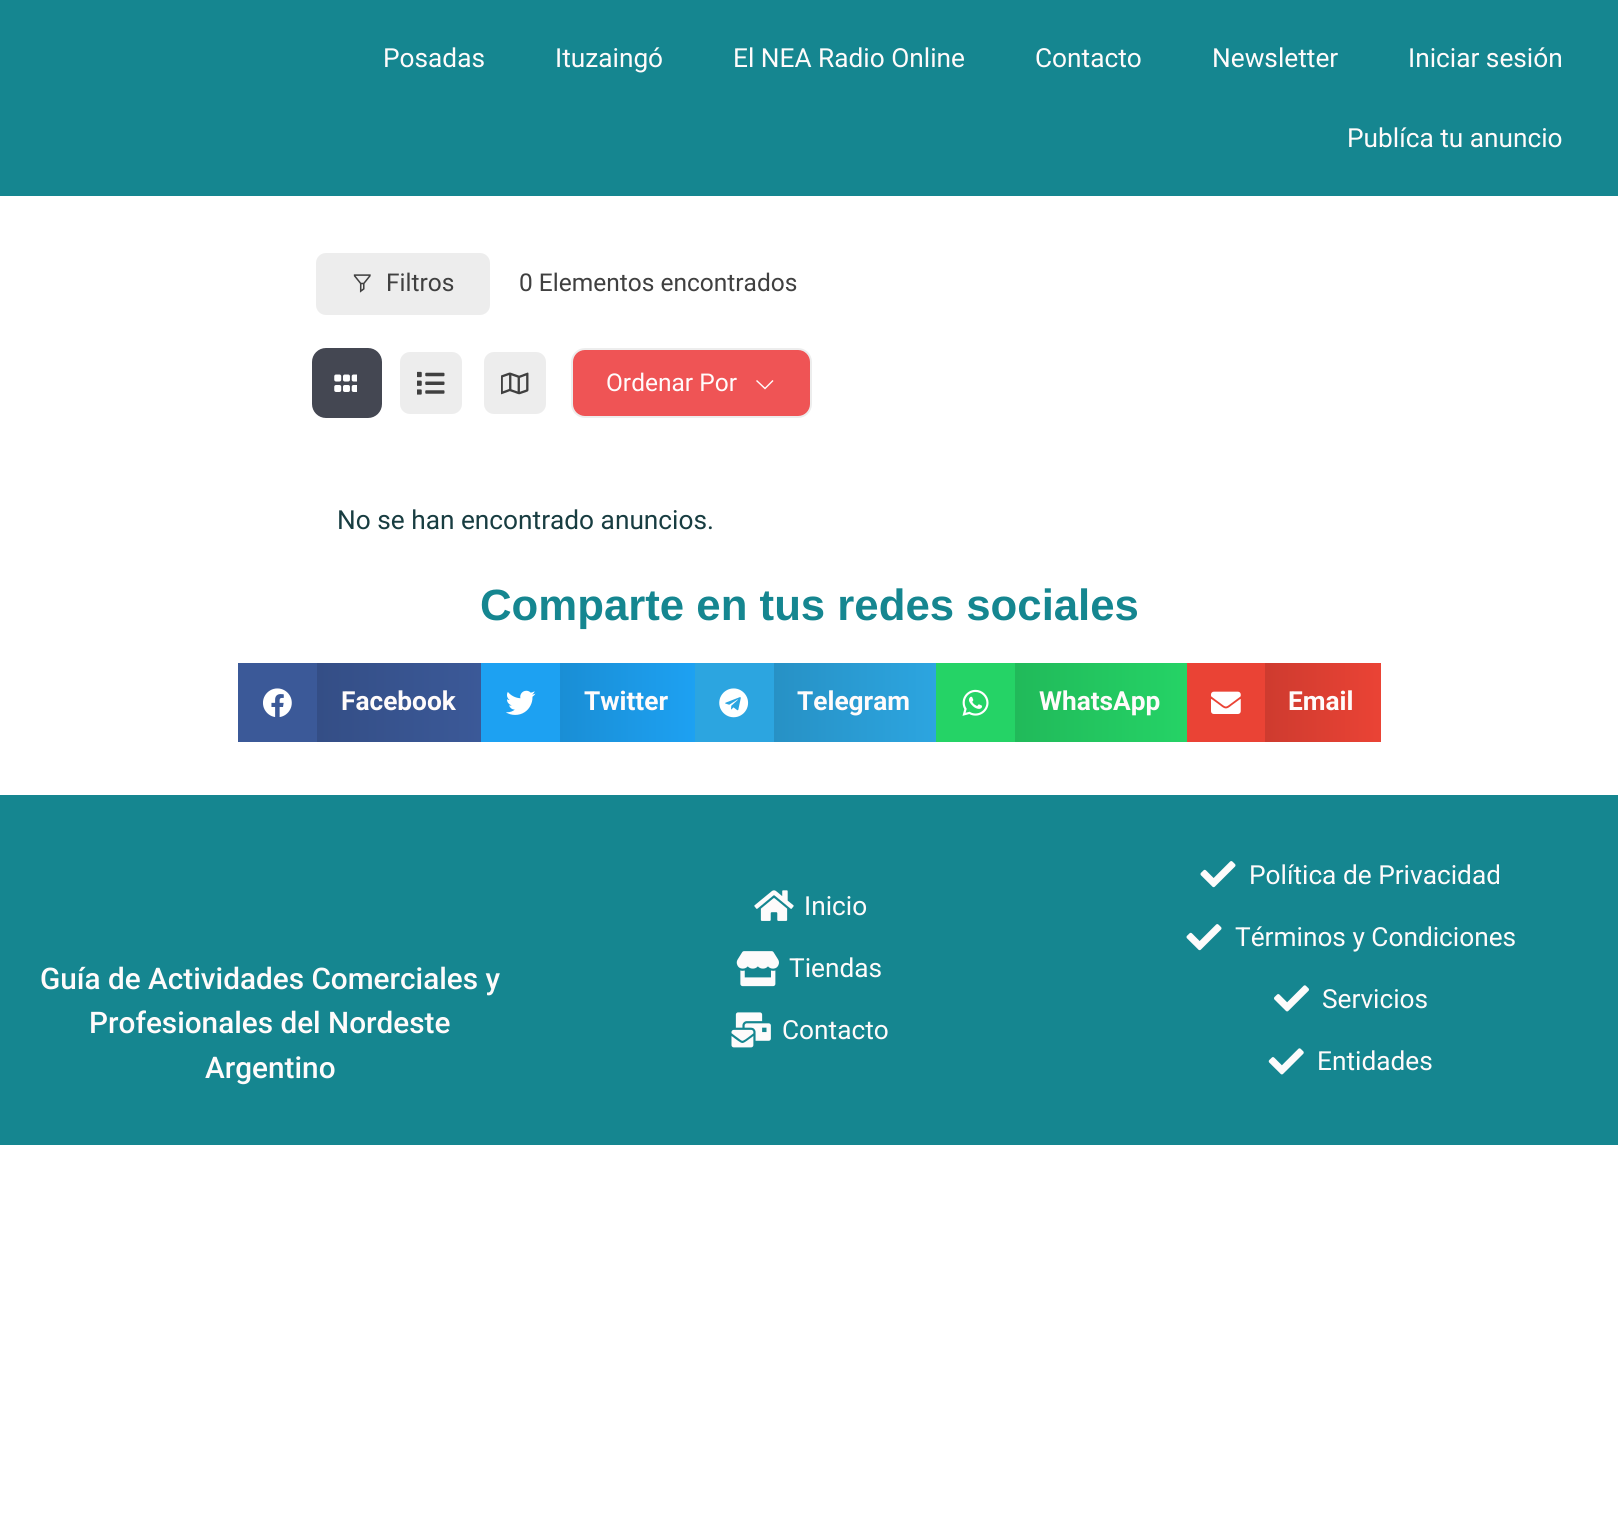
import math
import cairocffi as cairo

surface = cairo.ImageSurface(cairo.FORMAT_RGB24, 1618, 1535)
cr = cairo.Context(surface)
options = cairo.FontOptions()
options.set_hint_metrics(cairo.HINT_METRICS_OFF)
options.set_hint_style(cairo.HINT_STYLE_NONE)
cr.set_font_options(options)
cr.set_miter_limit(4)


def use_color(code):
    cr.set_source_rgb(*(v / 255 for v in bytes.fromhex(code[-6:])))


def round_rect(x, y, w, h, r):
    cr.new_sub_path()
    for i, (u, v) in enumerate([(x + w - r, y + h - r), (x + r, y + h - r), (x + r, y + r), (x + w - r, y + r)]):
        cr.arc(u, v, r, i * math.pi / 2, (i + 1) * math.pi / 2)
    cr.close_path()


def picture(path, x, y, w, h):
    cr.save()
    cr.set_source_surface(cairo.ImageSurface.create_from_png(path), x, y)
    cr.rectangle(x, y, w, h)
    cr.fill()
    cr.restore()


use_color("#ffffff")
cr.paint()
use_color("#158690")
cr.rectangle(0, 0, 1618, 196)
cr.fill()
cr.select_font_face("Roboto")
cr.set_font_size(26.25)
use_color("#fffbfb")
cr.move_to(383, 67)
cr.show_text("Posadas")
cr.move_to(555, 67)
cr.show_text("Ituzaingó")
cr.move_to(733, 67)
cr.show_text("El NEA Radio Online")
cr.move_to(1035, 67)
cr.show_text("Contacto")
cr.move_to(1212, 67)
cr.show_text("Newsletter")
cr.move_to(1408, 67)
cr.show_text("Iniciar sesión")
cr.move_to(1347, 147)
cr.show_text("Publíca tu anuncio")
use_color("#ededed")
round_rect(314, 251, 178, 66, 12)
cr.fill_preserve()
use_color("#ffffff")
cr.set_line_width(4)
cr.stroke()
picture("img1.png", 353, 274, 18, 19)
cr.set_font_size(24.5)
use_color("#404040")
cr.move_to(386, 291)
cr.show_text("Filtros")
cr.move_to(519, 291)
cr.show_text("0 Elementos encontrados")
use_color("#444752")
round_rect(314, 350, 66, 66, 12)
cr.fill_preserve()
cr.stroke()
picture("img2.png", 334, 374, 23, 18)
use_color("#ededed")
round_rect(398, 350, 66, 66, 12)
cr.fill_preserve()
use_color("#ffffff")
cr.stroke()
picture("img3.png", 417, 371, 28, 24)
use_color("#ededed")
round_rect(482, 350, 66, 66, 12)
cr.fill_preserve()
use_color("#ffffff")
cr.stroke()
picture("img4.png", 501, 372, 28, 23)
use_color("#ef5455")
round_rect(572, 349, 239, 68, 13)
cr.fill_preserve()
use_color("#ededed")
cr.set_line_width(2)
cr.stroke()
use_color("#fffbfb")
cr.move_to(606, 391)
cr.show_text("Ordenar Por")
cr.new_path()
cr.move_to(757, 380)
cr.line_to(756, 381)
cr.line_to(765, 389.5)
cr.line_to(773.5, 381)
cr.line_to(772.5, 380)
cr.line_to(765, 387.5)
cr.close_path()
cr.fill()
cr.set_font_size(26.25)
use_color("#183d41")
cr.move_to(337, 529)
cr.show_text("No se han encontrado anuncios.")
cr.select_font_face("Liberation Sans", cairo.FONT_SLANT_NORMAL, cairo.FONT_WEIGHT_BOLD)
cr.set_font_size(43.75)
use_color("#158690")
cr.move_to(480, 620)
cr.show_text("Comparte en tus redes sociales")
use_color("#3b5998")
cr.rectangle(238, 663, 79, 79)
cr.fill()
picture("img5.png", 263, 688, 29, 29)
gradient = cairo.LinearGradient(317, 703, 481, 703)
gradient.add_color_stop_rgba(0, 0.204, 0.306, 0.525, 1)
gradient.add_color_stop_rgba(1, 0.231, 0.349, 0.596, 1)
cr.set_source(gradient)
cr.rectangle(317, 663, 164, 79)
cr.fill()
cr.select_font_face("Roboto", cairo.FONT_SLANT_NORMAL, cairo.FONT_WEIGHT_BOLD)
cr.set_font_size(26.25)
use_color("#fffbfb")
cr.move_to(341, 710)
cr.show_text("Facebook")
use_color("#1da1f2")
cr.rectangle(481, 663, 79, 79)
cr.fill()
picture("img6.png", 506, 690, 30, 25)
gradient = cairo.LinearGradient(560, 703, 695, 703)
gradient.add_color_stop_rgba(0, 0.102, 0.557, 0.835, 1)
gradient.add_color_stop_rgba(1, 0.114, 0.631, 0.949, 1)
cr.set_source(gradient)
cr.rectangle(560, 663, 135, 79)
cr.fill()
use_color("#fffbfb")
cr.move_to(584, 710)
cr.show_text("Twitter")
use_color("#2ca5e0")
cr.rectangle(695, 663, 79, 79)
cr.fill()
picture("img7.png", 719, 688, 30, 30)
gradient = cairo.LinearGradient(774, 703, 936, 703)
gradient.add_color_stop_rgba(0, 0.153, 0.569, 0.773, 1)
gradient.add_color_stop_rgba(1, 0.173, 0.647, 0.878, 1)
cr.set_source(gradient)
cr.rectangle(774, 663, 162, 79)
cr.fill()
use_color("#fffbfb")
cr.move_to(797, 710)
cr.show_text("Telegram")
use_color("#25d366")
cr.rectangle(936, 663, 79, 79)
cr.fill()
picture("img8.png", 962, 689, 27, 27)
gradient = cairo.LinearGradient(1015, 703, 1187, 703)
gradient.add_color_stop_rgba(0, 0.129, 0.729, 0.353, 1)
gradient.add_color_stop_rgba(1, 0.145, 0.827, 0.4, 1)
cr.set_source(gradient)
cr.rectangle(1015, 663, 172, 79)
cr.fill()
use_color("#fffbfb")
cr.move_to(1039, 710)
cr.show_text("WhatsApp")
use_color("#ea4335")
cr.rectangle(1187, 663, 78, 79)
cr.fill()
picture("img9.png", 1211, 691, 30, 23)
gradient = cairo.LinearGradient(1265, 703, 1381, 703)
gradient.add_color_stop_rgba(0, 0.808, 0.231, 0.184, 1)
gradient.add_color_stop_rgba(1, 0.918, 0.263, 0.208, 1)
cr.set_source(gradient)
cr.rectangle(1265, 663, 116, 79)
cr.fill()
use_color("#fffbfb")
cr.move_to(1288, 710)
cr.show_text("Email")
use_color("#158690")
cr.rectangle(0, 795, 1618, 350)
cr.fill()
cr.select_font_face("Roboto Medium")
cr.set_font_size(29.75)
use_color("#fffbfb")
cr.move_to(40, 989)
cr.show_text("Guía de Actividades Comerciales y")
cr.move_to(89, 1033)
cr.show_text("Profesionales del Nordeste")
cr.move_to(205, 1078)
cr.show_text("Argentino")
picture("img10.png", 754, 890, 40, 31)
cr.select_font_face("Roboto")
cr.set_font_size(26.25)
cr.move_to(804, 915)
cr.show_text("Inicio")
picture("img11.png", 736, 951, 43, 36)
cr.move_to(789, 977)
cr.show_text("Tiendas")
picture("img12.png", 731, 1012, 40, 36)
cr.move_to(782, 1039)
cr.show_text("Contacto")
picture("img13.png", 1200, 861, 36, 27)
cr.move_to(1249, 884)
cr.show_text("Política de Privacidad")
picture("img13.png", 1186, 924, 36, 27)
cr.move_to(1235, 946)
cr.show_text("Términos y Condiciones")
picture("img14.png", 1274, 985, 35, 27)
cr.move_to(1322, 1008)
cr.show_text("Servicios")
picture("img15.png", 1268, 1048, 36, 27)
cr.move_to(1317, 1070)
cr.show_text("Entidades")
surface.write_to_png("result.png")
